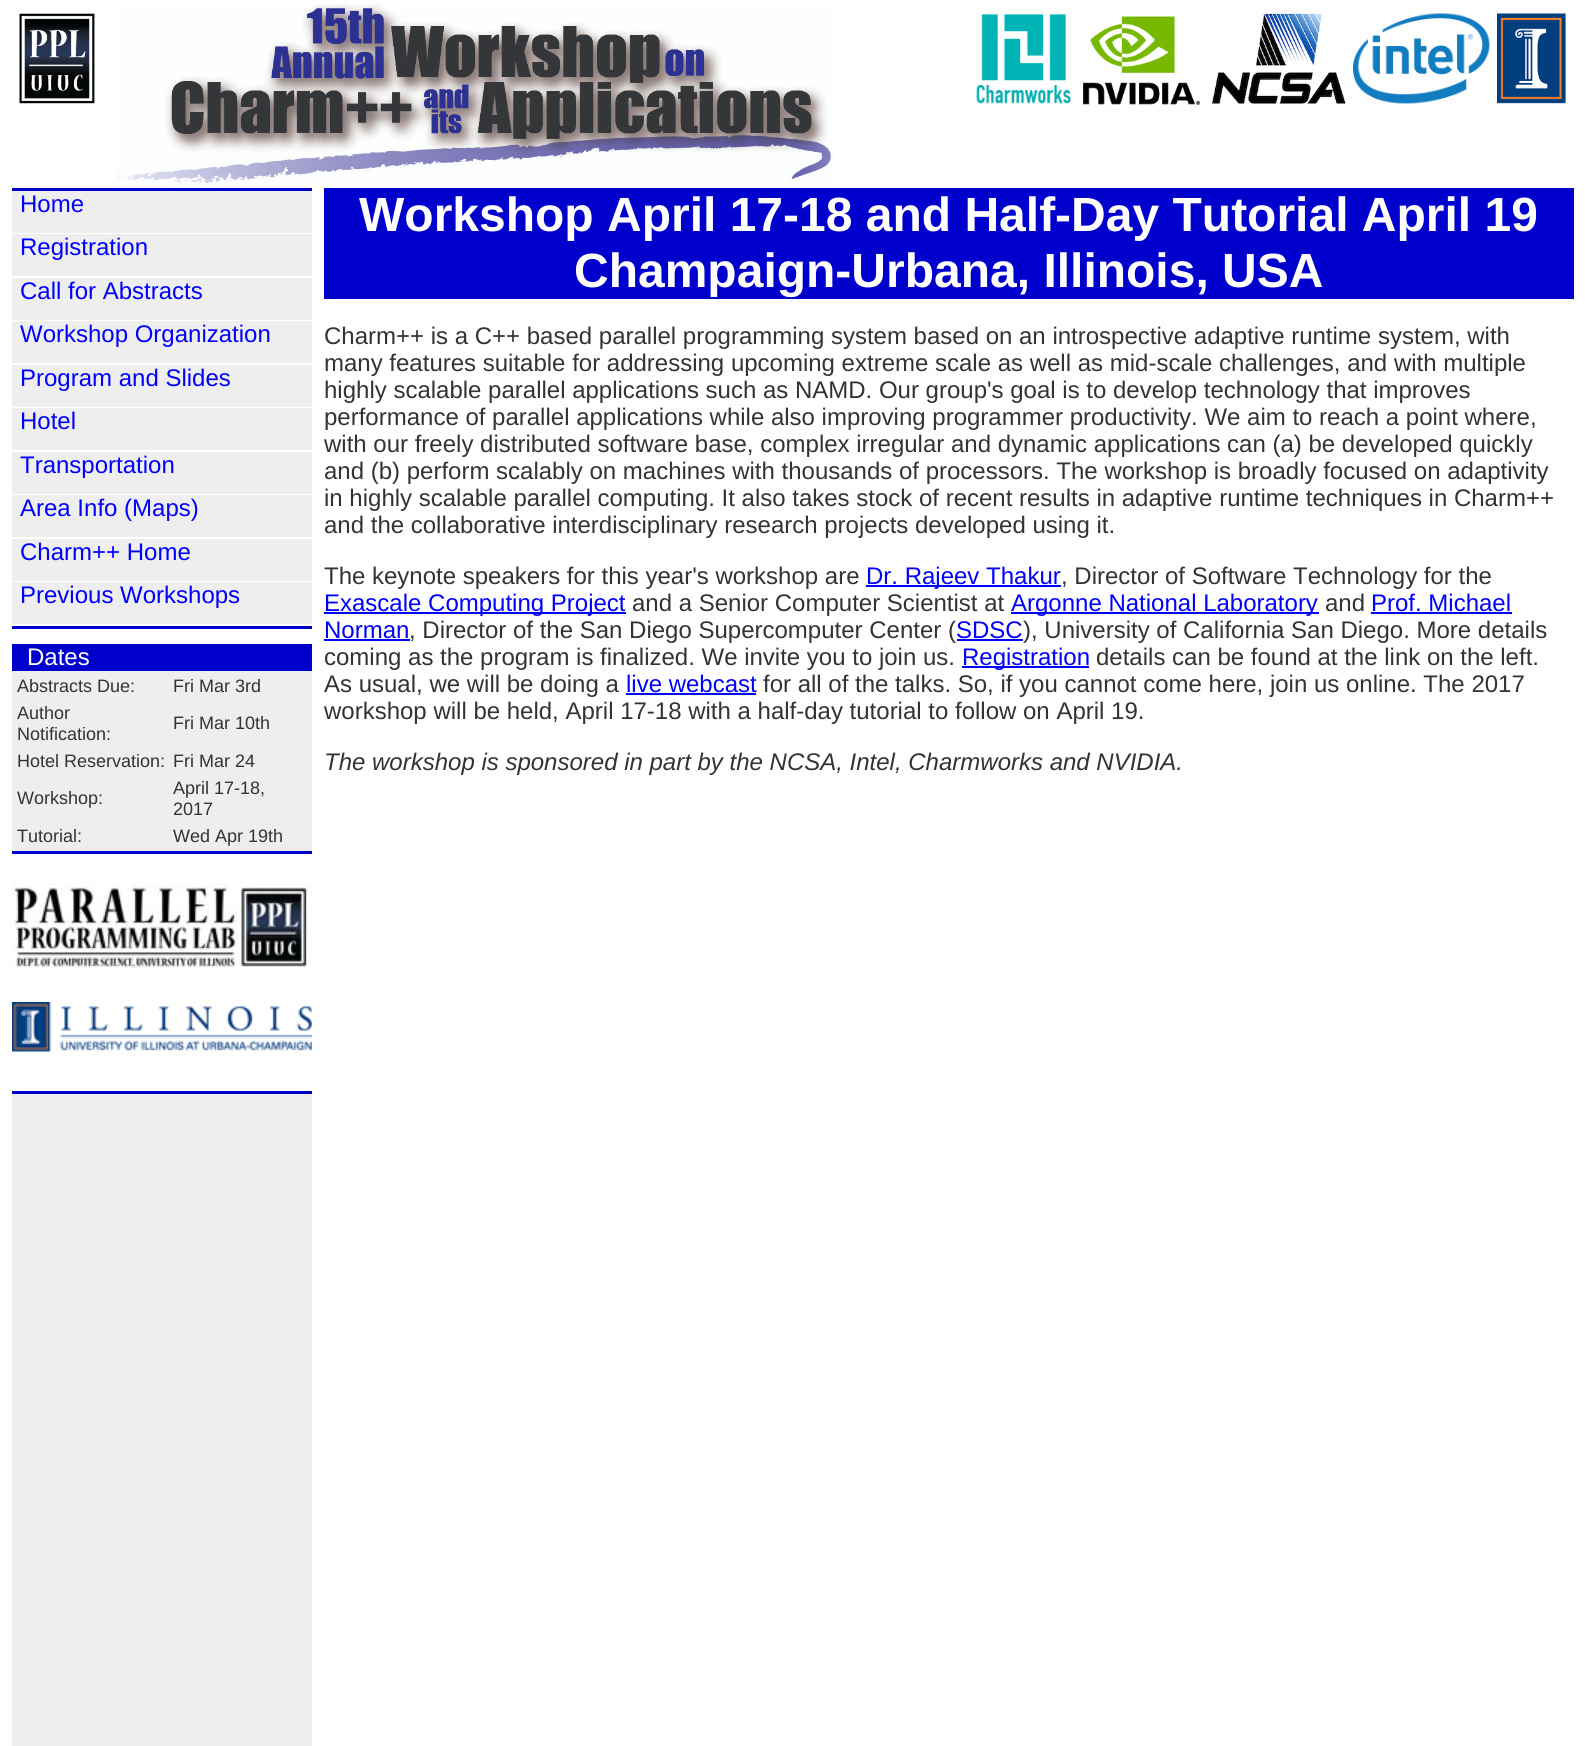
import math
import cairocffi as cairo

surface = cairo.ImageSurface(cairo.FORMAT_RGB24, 1585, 1746)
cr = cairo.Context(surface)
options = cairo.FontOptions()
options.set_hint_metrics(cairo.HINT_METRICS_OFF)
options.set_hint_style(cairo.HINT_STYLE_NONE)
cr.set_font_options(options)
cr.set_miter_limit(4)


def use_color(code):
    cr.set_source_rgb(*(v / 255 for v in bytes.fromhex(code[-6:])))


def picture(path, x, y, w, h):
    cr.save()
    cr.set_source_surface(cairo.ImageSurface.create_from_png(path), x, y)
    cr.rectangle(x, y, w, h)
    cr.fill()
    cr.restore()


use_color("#ffffff")
cr.paint()
use_color("#eeeeee")
cr.rectangle(12, 1094, 300, 652)
cr.fill()
picture("img1.png", 19, 13, 76, 91)
picture("img2.png", 116, 3, 719, 183)
picture("img3.png", 976, 14, 95, 90)
picture("img4.png", 1083, 16, 118, 89)
picture("img5.png", 1212, 13, 134, 91)
picture("img6.png", 1353, 13, 137, 91)
picture("img7.png", 1497, 13, 69, 91)
use_color("#0000cd")
cr.rectangle(12, 188, 300, 3)
cr.fill()
cr.rectangle(12, 626, 300, 3)
cr.fill()
use_color("#eeeeee")
cr.rectangle(12, 191, 300, 42)
cr.fill()
cr.select_font_face("Liberation Sans")
cr.set_font_size(24)
use_color("#0000ff")
cr.move_to(20, 212)
cr.show_text("Home")
use_color("#eeeeee")
cr.rectangle(12, 234, 300, 42)
cr.fill()
use_color("#0000ff")
cr.move_to(20, 255)
cr.show_text("Registration")
use_color("#eeeeee")
cr.rectangle(12, 278, 300, 42)
cr.fill()
use_color("#0000ff")
cr.move_to(20, 299)
cr.show_text("Call for Abstracts")
use_color("#eeeeee")
cr.rectangle(12, 321, 300, 42)
cr.fill()
use_color("#0000ff")
cr.move_to(20, 342)
cr.show_text("Workshop Organization")
use_color("#eeeeee")
cr.rectangle(12, 365, 300, 42)
cr.fill()
use_color("#0000ff")
cr.move_to(20, 386)
cr.show_text("Program and Slides")
use_color("#eeeeee")
cr.rectangle(12, 408, 300, 42)
cr.fill()
use_color("#0000ff")
cr.move_to(20, 429)
cr.show_text("Hotel")
use_color("#eeeeee")
cr.rectangle(12, 452, 300, 42)
cr.fill()
use_color("#0000ff")
cr.move_to(20, 473)
cr.show_text("Transportation")
use_color("#eeeeee")
cr.rectangle(12, 495, 300, 42)
cr.fill()
use_color("#0000ff")
cr.move_to(20, 516)
cr.show_text("Area Info (Maps)")
use_color("#eeeeee")
cr.rectangle(12, 539, 300, 42)
cr.fill()
use_color("#0000ff")
cr.move_to(20, 560)
cr.show_text("Charm++ Home")
use_color("#eeeeee")
cr.rectangle(12, 582, 300, 42)
cr.fill()
use_color("#0000ff")
cr.move_to(20, 603)
cr.show_text("Previous Workshops")
use_color("#eeeeee")
cr.rectangle(12, 671, 300, 180)
cr.fill()
use_color("#0000cd")
cr.rectangle(12, 851, 300, 3)
cr.fill()
cr.rectangle(12, 644, 300, 27)
cr.fill()
use_color("#ffffff")
cr.move_to(27, 665)
cr.show_text("Dates")
cr.set_font_size(18)
use_color("#333333")
cr.move_to(17, 692)
cr.show_text("Abstracts Due:")
cr.move_to(173, 692)
cr.show_text("Fri Mar 3rd")
cr.move_to(17, 719)
cr.show_text("Author")
cr.move_to(17, 740)
cr.show_text("Notification:")
cr.move_to(173, 729)
cr.show_text("Fri Mar 10th")
cr.move_to(17, 767)
cr.show_text("Hotel Reservation:")
cr.move_to(173, 767)
cr.show_text("Fri Mar 24")
cr.move_to(17, 804)
cr.show_text("Workshop:")
cr.move_to(173, 794)
cr.show_text("April 17-18,")
cr.move_to(173, 815)
cr.show_text("2017")
cr.move_to(17, 842)
cr.show_text("Tutorial:")
cr.move_to(173, 842)
cr.show_text("Wed Apr 19th")
picture("img8.png", 12, 883, 300, 85)
picture("img9.png", 12, 1002, 300, 50)
use_color("#0000cd")
cr.rectangle(12, 1091, 300, 3)
cr.fill()
cr.rectangle(324, 188, 1250, 111)
cr.fill()
cr.select_font_face("Liberation Sans", cairo.FONT_SLANT_NORMAL, cairo.FONT_WEIGHT_BOLD)
cr.set_font_size(48)
use_color("#ffffff")
cr.move_to(359, 231)
cr.show_text("Workshop April 17-18 and Half-Day Tutorial April 19")
cr.move_to(574, 287)
cr.show_text("Champaign-Urbana, Illinois, USA")
cr.select_font_face("Liberation Sans")
cr.set_font_size(24)
use_color("#333333")
cr.move_to(324, 344)
cr.show_text("Charm++ is a C++ based parallel programming system based on an introspective adaptive runtime system, with")
cr.move_to(324, 371)
cr.show_text("many features suitable for addressing upcoming extreme scale as well as mid-scale challenges, and with multiple")
cr.move_to(324, 398)
cr.show_text("highly scalable parallel applications such as NAMD. Our group's goal is to develop technology that improves")
cr.move_to(324, 425)
cr.show_text("performance of parallel applications while also improving programmer productivity. We aim to reach a point where,")
cr.move_to(324, 452)
cr.show_text("with our freely distributed software base, complex irregular and dynamic applications can (a) be developed quickly")
cr.move_to(324, 479)
cr.show_text("and (b) perform scalably on machines with thousands of processors. The workshop is broadly focused on adaptivity")
cr.move_to(324, 506)
cr.show_text("in highly scalable parallel computing. It also takes stock of recent results in adaptive runtime techniques in Charm++")
cr.move_to(324, 533)
cr.show_text("and the collaborative interdisciplinary research projects developed using it.")
cr.move_to(324, 584)
cr.show_text("The keynote speakers for this year's workshop are")
use_color("#0000ff")
cr.rectangle(866, 585, 195, 2)
cr.fill()
cr.move_to(866, 584)
cr.show_text("Dr. Rajeev Thakur")
use_color("#333333")
cr.move_to(1061, 584)
cr.show_text(", Director of Software Technology for the")
use_color("#0000ff")
cr.rectangle(324, 612, 302, 2)
cr.fill()
cr.move_to(324, 611)
cr.show_text("Exascale Computing Project")
use_color("#333333")
cr.move_to(632, 611)
cr.show_text("and a Senior Computer Scientist at")
use_color("#0000ff")
cr.rectangle(1011, 612, 308, 2)
cr.fill()
cr.move_to(1011, 611)
cr.show_text("Argonne National Laboratory")
use_color("#333333")
cr.move_to(1325, 611)
cr.show_text("and")
use_color("#0000ff")
cr.move_to(1371, 611)
cr.show_text("Prof. Michael")
cr.rectangle(1371, 612, 141, 2)
cr.fill()
cr.move_to(324, 638)
cr.show_text("Norman")
cr.rectangle(324, 639, 86, 2)
cr.fill()
use_color("#333333")
cr.move_to(409, 638)
cr.show_text(", Director of the San Diego Supercomputer Center (")
use_color("#0000ff")
cr.move_to(956, 638)
cr.show_text("SDSC")
cr.rectangle(957, 639, 66, 2)
cr.fill()
use_color("#333333")
cr.move_to(1023, 638)
cr.show_text("), University of California San Diego. More details")
cr.move_to(324, 665)
cr.show_text("coming as the program is finalized. We invite you to join us.")
use_color("#0000ff")
cr.rectangle(962, 666, 127, 2)
cr.fill()
cr.move_to(962, 665)
cr.show_text("Registration")
use_color("#333333")
cr.move_to(1096, 665)
cr.show_text("details can be found at the link on the left.")
cr.move_to(324, 692)
cr.show_text("As usual, we will be doing a")
use_color("#0000ff")
cr.move_to(626, 692)
cr.show_text("live webcast")
cr.rectangle(626, 693, 130, 2)
cr.fill()
use_color("#333333")
cr.move_to(763, 692)
cr.show_text("for all of the talks. So, if you cannot come here, join us online. The 2017")
cr.move_to(324, 719)
cr.show_text("workshop will be held, April 17-18 with a half-day tutorial to follow on April 19.")
cr.select_font_face("Liberation Sans", cairo.FONT_SLANT_ITALIC)
cr.move_to(324, 770)
cr.show_text("The workshop is sponsored in part by the NCSA, Intel, Charmworks and NVIDIA.")
surface.write_to_png("result.png")
